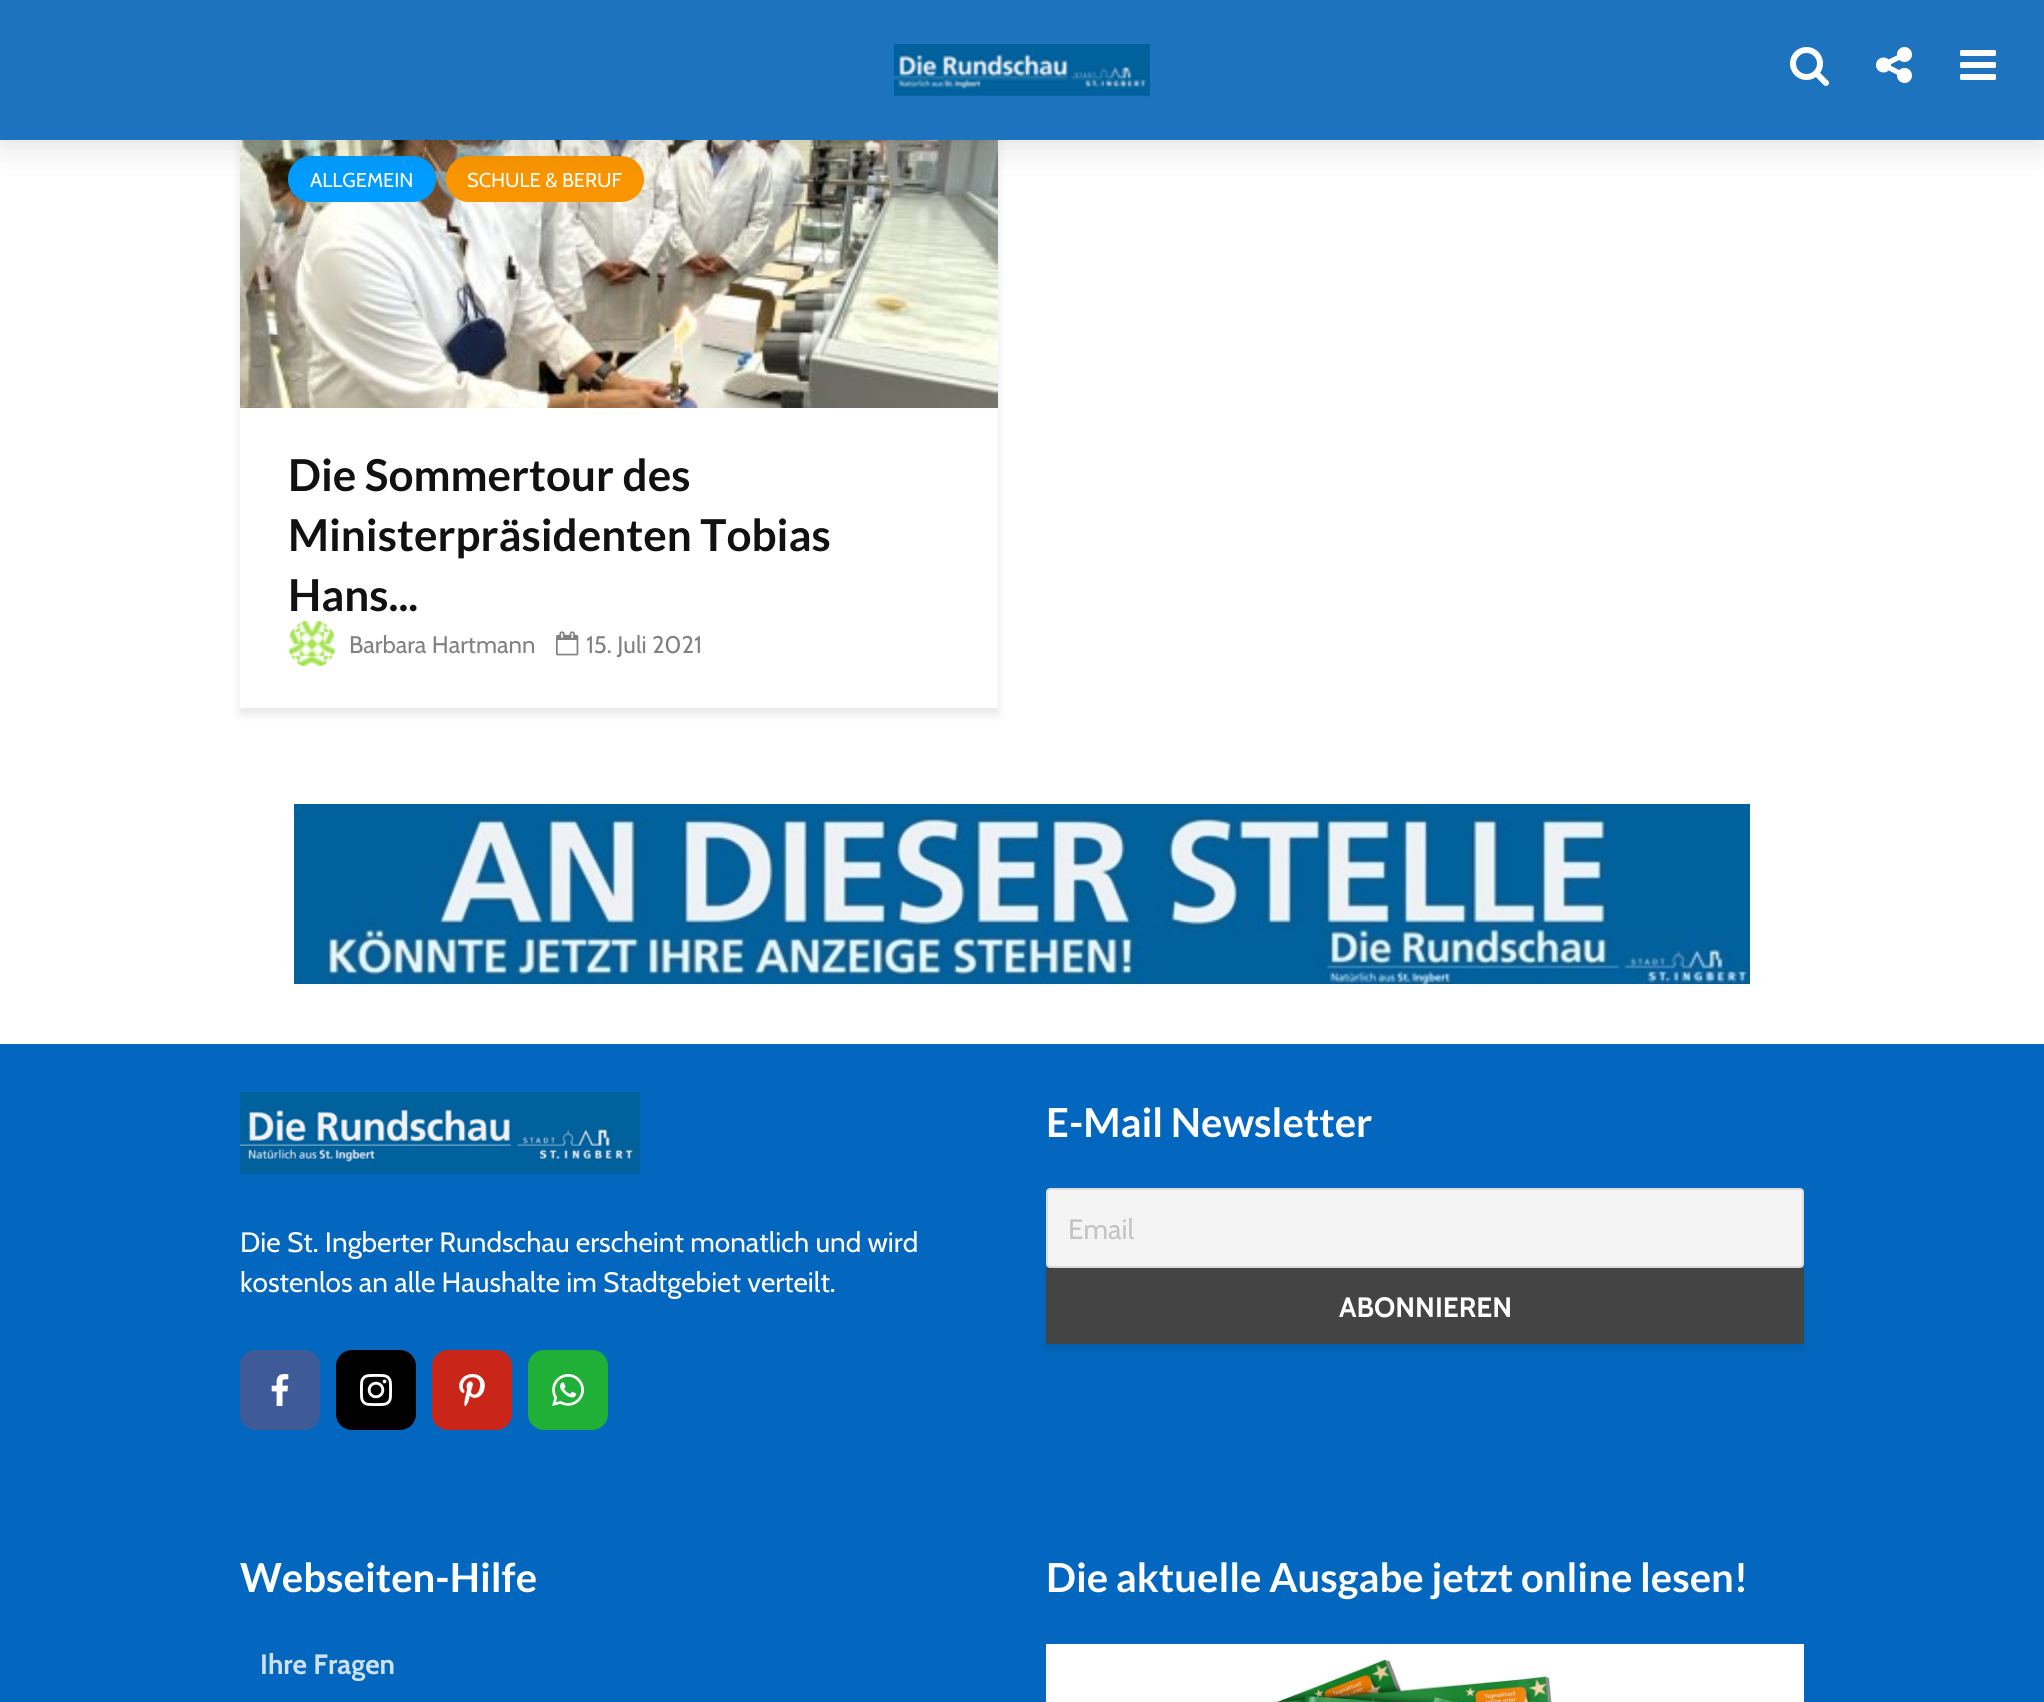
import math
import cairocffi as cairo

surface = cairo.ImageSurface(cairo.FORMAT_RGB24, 2044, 1702)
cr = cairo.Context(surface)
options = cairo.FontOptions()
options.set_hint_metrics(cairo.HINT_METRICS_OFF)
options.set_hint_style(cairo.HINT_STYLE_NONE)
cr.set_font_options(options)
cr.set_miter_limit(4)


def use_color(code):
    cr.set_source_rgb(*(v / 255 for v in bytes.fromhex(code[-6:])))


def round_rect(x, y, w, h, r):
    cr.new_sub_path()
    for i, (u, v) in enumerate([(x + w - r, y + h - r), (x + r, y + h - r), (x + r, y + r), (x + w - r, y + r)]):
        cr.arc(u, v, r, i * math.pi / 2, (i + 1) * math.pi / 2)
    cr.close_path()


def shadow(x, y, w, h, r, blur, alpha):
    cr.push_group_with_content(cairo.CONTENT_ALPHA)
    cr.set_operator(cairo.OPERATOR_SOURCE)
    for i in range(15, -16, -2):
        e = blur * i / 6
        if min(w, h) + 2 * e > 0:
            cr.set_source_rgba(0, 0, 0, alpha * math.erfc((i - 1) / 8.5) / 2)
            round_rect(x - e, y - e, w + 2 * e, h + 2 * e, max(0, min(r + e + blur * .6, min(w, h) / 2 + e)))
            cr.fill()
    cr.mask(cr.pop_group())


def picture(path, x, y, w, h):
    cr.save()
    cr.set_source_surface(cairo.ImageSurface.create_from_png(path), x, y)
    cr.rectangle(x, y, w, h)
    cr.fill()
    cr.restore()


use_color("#ffffff")
cr.paint()
cr.save()
cr.set_fill_rule(cairo.FILL_RULE_EVEN_ODD)
cr.new_path()
cr.move_to(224, 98)
cr.line_to(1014, 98)
cr.line_to(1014, 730)
cr.line_to(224, 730)
cr.close_path()
cr.move_to(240, 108)
cr.line_to(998, 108)
cr.line_to(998, 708)
cr.line_to(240, 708)
cr.close_path()
cr.clip()
use_color("#000101")
shadow(240, 114, 758, 600, 0, 5, 0.1)
cr.restore()
picture("img5.png", 240, 140, 758, 268)
use_color("#009cff")
round_rect(288, 156, 148, 46, 23)
cr.fill()
use_color("#f99500")
round_rect(446, 156, 198, 46, 23)
cr.fill()
use_color("#000000")
shadow(0, 0, 2044, 140, 0, 20, 0.15)
use_color("#1e73be")
cr.rectangle(0, 0, 2044, 140)
cr.fill()
picture("img1.png", 894, 44, 256, 53)
picture("img2.png", 1790, 47, 39, 39)
picture("img3.png", 1876, 47, 36, 36)
picture("img4.png", 1960, 50, 36, 30)
cr.select_font_face("Cabin")
cr.set_font_size(20)
use_color("#ffffff")
cr.move_to(310, 187)
cr.show_text("ALLGEMEIN")
cr.move_to(467, 187)
cr.show_text("SCHULE & BERUF")
cr.select_font_face("Lato", cairo.FONT_SLANT_NORMAL, cairo.FONT_WEIGHT_BOLD)
cr.set_font_size(44)
use_color("#111111")
cr.move_to(288, 491)
cr.show_text("Die Sommertour des")
cr.move_to(288, 551)
cr.show_text("Ministerpräsidenten Tobias")
cr.move_to(288, 611)
cr.show_text("Hans...")
picture("img6.png", 288, 620, 48, 47)
cr.select_font_face("Cabin")
cr.set_font_size(24)
use_color("#818181")
cr.move_to(349, 653)
cr.show_text("Barbara Hartmann")
picture("img7.png", 556, 631, 23, 25)
cr.move_to(586, 653)
cr.show_text("15. Juli 2021")
picture("img8.png", 294, 804, 1456, 180)
use_color("#0367bf")
cr.rectangle(0, 1044, 2044, 658)
cr.fill()
picture("img9.png", 240, 1092, 400, 82)
cr.set_font_size(28)
use_color("#ffffff")
cr.move_to(240, 1252)
cr.show_text("Die St. Ingberter Rundschau erscheint monatlich und wird")
cr.move_to(240, 1292)
cr.show_text("kostenlos an alle Haushalte im Stadtgebiet verteilt.")
use_color("#3e5b98")
round_rect(240, 1350, 80, 80, 16)
cr.fill()
picture("img10.png", 271, 1374, 18, 32)
use_color("#000000")
round_rect(336, 1350, 80, 80, 16)
cr.fill()
picture("img11.png", 360, 1374, 32, 32)
use_color("#c92619")
round_rect(432, 1350, 80, 80, 16)
cr.fill()
picture("img12.png", 459, 1374, 26, 32)
use_color("#20b038")
round_rect(528, 1350, 80, 80, 16)
cr.fill()
picture("img13.png", 552, 1374, 32, 32)
cr.select_font_face("Lato", cairo.FONT_SLANT_NORMAL, cairo.FONT_WEIGHT_BOLD)
cr.set_font_size(40)
use_color("#ffffff")
cr.move_to(1046, 1137)
cr.show_text("E-Mail Newsletter")
use_color("#f4f4f4")
round_rect(1047, 1189, 756, 78, 3)
cr.fill_preserve()
use_color("#dddddd")
cr.stroke()
cr.select_font_face("Cabin")
cr.set_font_size(28)
use_color("#c3c3c3")
cr.move_to(1068, 1239)
cr.show_text("Email")
use_color("#000000")
shadow(1046, 1274, 758, 76, 0, 5, 0.1)
use_color("#444444")
cr.rectangle(1046, 1268, 758, 76)
cr.fill()
cr.select_font_face("Cabin", cairo.FONT_SLANT_NORMAL, cairo.FONT_WEIGHT_BOLD)
use_color("#ffffff")
cr.move_to(1339, 1317)
cr.show_text("ABONNIEREN")
cr.select_font_face("Lato", cairo.FONT_SLANT_NORMAL, cairo.FONT_WEIGHT_BOLD)
cr.set_font_size(40)
cr.move_to(240, 1592)
cr.show_text("Webseiten-Hilfe")
cr.select_font_face("Cabin", cairo.FONT_SLANT_NORMAL, cairo.FONT_WEIGHT_BOLD)
cr.set_font_size(28)
use_color("#cde1f2")
cr.move_to(260, 1674)
cr.show_text("Ihre Fragen")
cr.select_font_face("Lato", cairo.FONT_SLANT_NORMAL, cairo.FONT_WEIGHT_BOLD)
cr.set_font_size(40)
use_color("#ffffff")
cr.move_to(1046, 1592)
cr.show_text("Die aktuelle Ausgabe jetzt online lesen!")
picture("img14.png", 1046, 1644, 758, 58)
surface.write_to_png("result.png")
